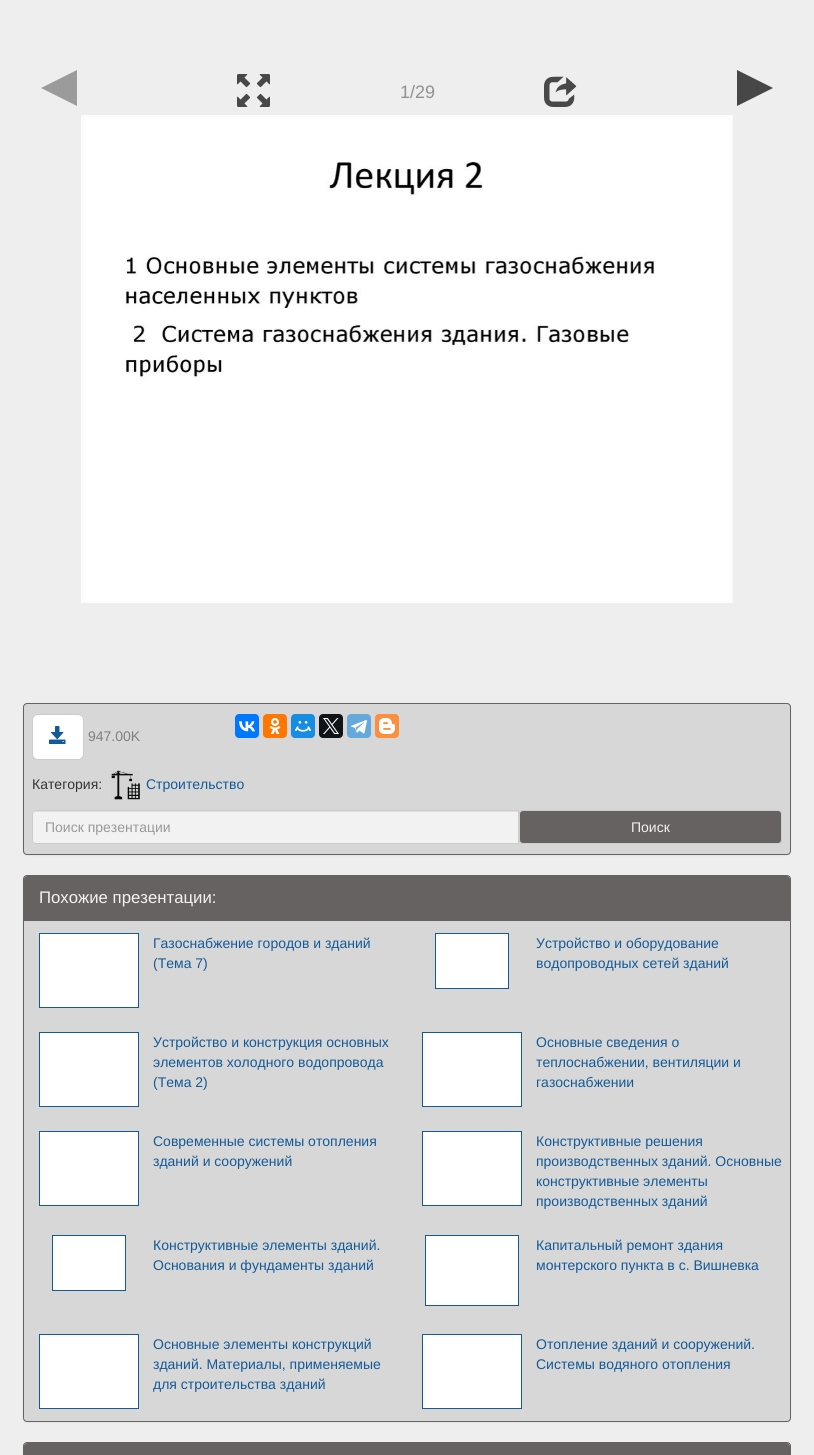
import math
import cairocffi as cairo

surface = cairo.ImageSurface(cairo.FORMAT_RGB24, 814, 1455)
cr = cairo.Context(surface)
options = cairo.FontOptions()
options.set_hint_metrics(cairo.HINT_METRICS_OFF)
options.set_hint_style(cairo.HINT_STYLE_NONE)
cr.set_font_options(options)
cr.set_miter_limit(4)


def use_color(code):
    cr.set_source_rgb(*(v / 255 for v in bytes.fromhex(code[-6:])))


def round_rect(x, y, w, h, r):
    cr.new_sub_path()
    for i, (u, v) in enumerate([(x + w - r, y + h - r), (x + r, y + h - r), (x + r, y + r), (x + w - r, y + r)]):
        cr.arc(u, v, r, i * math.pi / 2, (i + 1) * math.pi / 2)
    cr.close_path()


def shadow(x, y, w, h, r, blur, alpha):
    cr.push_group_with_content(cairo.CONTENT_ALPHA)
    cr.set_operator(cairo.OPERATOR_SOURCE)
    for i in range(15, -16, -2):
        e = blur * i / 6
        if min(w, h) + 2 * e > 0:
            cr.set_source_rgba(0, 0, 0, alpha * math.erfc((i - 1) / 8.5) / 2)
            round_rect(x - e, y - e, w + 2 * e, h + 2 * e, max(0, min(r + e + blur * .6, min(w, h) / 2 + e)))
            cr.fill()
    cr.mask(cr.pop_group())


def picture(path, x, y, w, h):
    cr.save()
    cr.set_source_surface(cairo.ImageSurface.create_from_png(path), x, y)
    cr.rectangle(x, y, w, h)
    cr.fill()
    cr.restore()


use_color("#eeeeee")
cr.paint()
use_color("#9b9b9b")
cr.new_path()
cr.move_to(77, 70)
cr.line_to(77, 106)
cr.line_to(41, 88)
cr.close_path()
cr.fill()
picture("img1.png", 237, 74, 33, 33)
picture("img2.png", 544, 76, 33, 31)
use_color("#474747")
cr.new_path()
cr.move_to(737, 106)
cr.line_to(737, 70)
cr.line_to(773, 88)
cr.close_path()
cr.fill()
cr.select_font_face("Liberation Sans")
cr.set_font_size(18)
use_color("#919191")
cr.move_to(400, 98)
cr.show_text("1/29")
picture("img3.png", 81, 115, 652, 488)
use_color("#000000")
shadow(23, 704, 768, 152, 4, 0.5, 0.05)
use_color("#d7d7d7")
round_rect(23.5, 703.5, 767, 151, 3.5)
cr.fill_preserve()
use_color("#676262")
cr.set_line_width(1)
cr.stroke()
use_color("#ffffff")
round_rect(32.5, 714.5, 51, 45, 5.5)
cr.fill_preserve()
use_color("#cccccc")
cr.stroke()
picture("img4.png", 49, 726, 17, 18)
cr.set_font_size(14)
use_color("#808080")
cr.move_to(88, 741)
cr.show_text("947.00K")
use_color("#0077ff")
round_rect(235, 714, 24, 24, 4)
cr.fill()
picture("img5.png", 239, 721, 16, 11)
use_color("#ff7700")
round_rect(263, 714, 24, 24, 4)
cr.fill()
picture("img6.png", 269, 718, 12, 16)
use_color("#168de2")
round_rect(291, 714, 24, 24, 4)
cr.fill()
picture("img7.png", 295, 721, 16, 11)
use_color("#0f1419")
round_rect(319, 714, 24, 24, 4)
cr.fill()
picture("img8.png", 323, 718, 16, 16)
use_color("#64a9dc")
round_rect(347, 714, 24, 24, 4)
cr.fill()
picture("img9.png", 351, 720, 16, 14)
use_color("#fb8f3d")
round_rect(375, 714, 24, 24, 4)
cr.fill()
picture("img10.png", 379, 718, 16, 16)
use_color("#333333")
cr.move_to(32, 789)
cr.show_text("Категория:")
picture("img11.png", 111, 770, 29, 30)
use_color("#135a97")
cr.move_to(146, 789)
cr.show_text("Строительство")
use_color("#f2f2f2")
cr.new_path()
cr.move_to(36, 810)
cr.line_to(519, 810)
cr.line_to(519, 844)
cr.line_to(36, 844)
cr.curve_to(34, 844, 32, 842, 32, 840)
cr.line_to(32, 814)
cr.curve_to(32, 812, 34, 810, 36, 810)
cr.close_path()
cr.fill()
use_color("#e0e0e0")
cr.new_path()
cr.move_to(36, 812)
cr.line_to(518, 812)
cr.line_to(518, 811)
cr.line_to(36, 811)
cr.curve_to(34, 811, 33, 813, 33, 815)
cr.curve_to(33, 813, 34, 812, 36, 812)
cr.close_path()
cr.fill()
cr.new_path()
cr.move_to(36, 810.5)
cr.line_to(518.5, 810.5)
cr.line_to(518.5, 843.5)
cr.line_to(36, 843.5)
cr.curve_to(34, 843.5, 32.5, 842, 32.5, 840)
cr.line_to(32.5, 814)
cr.curve_to(32.5, 812, 34, 810.5, 36, 810.5)
cr.close_path()
use_color("#cccccc")
cr.stroke()
use_color("#999999")
cr.move_to(45, 832)
cr.show_text("Поиск презентации")
use_color("#676262")
round_rect(519.5, 810.5, 262, 33, 3.5)
cr.fill_preserve()
use_color("#cccccc")
cr.stroke()
use_color("#f2f2f2")
cr.move_to(631, 832)
cr.show_text("Поиск")
use_color("#000000")
shadow(23, 876, 768, 547, 4, 0.5, 0.05)
use_color("#d7d7d7")
round_rect(23.5, 875.5, 767, 546, 3.5)
cr.fill_preserve()
use_color("#676262")
cr.stroke()
cr.new_path()
cr.move_to(27, 876)
cr.line_to(787, 876)
cr.curve_to(788.5, 876, 790, 877.5, 790, 879)
cr.line_to(790, 921)
cr.line_to(24, 921)
cr.line_to(24, 879)
cr.curve_to(24, 877.5, 25.5, 876, 27, 876)
cr.close_path()
cr.fill()
cr.set_font_size(16.75)
use_color("#f2f2f2")
cr.move_to(39, 903)
cr.show_text("Похожие презентации:")
cr.rectangle(39.5, 933.5, 99, 74)
use_color("#135a97")
cr.stroke()
use_color("#ffffff")
cr.rectangle(40, 934, 98, 73)
cr.fill()
cr.set_font_size(14)
use_color("#135a97")
cr.move_to(153, 948)
cr.show_text("Газоснабжение городов и зданий")
cr.move_to(153, 968)
cr.show_text("(Тема 7)")
cr.rectangle(435.5, 933.5, 73, 55)
cr.stroke()
use_color("#ffffff")
cr.rectangle(436, 934, 72, 54)
cr.fill()
use_color("#135a97")
cr.move_to(536, 948)
cr.show_text("Устройство и оборудование")
cr.move_to(536, 968)
cr.show_text("водопроводных сетей зданий")
cr.rectangle(39.5, 1032.5, 99, 74)
cr.stroke()
use_color("#ffffff")
cr.rectangle(40, 1033, 98, 73)
cr.fill()
use_color("#135a97")
cr.move_to(153, 1047)
cr.show_text("Устройство и конструкция основных")
cr.move_to(153, 1067)
cr.show_text("элементов холодного водопровода")
cr.move_to(153, 1087)
cr.show_text("(Тема 2)")
cr.rectangle(422.5, 1032.5, 99, 74)
cr.stroke()
use_color("#ffffff")
cr.rectangle(423, 1033, 98, 73)
cr.fill()
use_color("#135a97")
cr.move_to(536, 1047)
cr.show_text("Основные сведения о")
cr.move_to(536, 1067)
cr.show_text("теплоснабжении, вентиляции и")
cr.move_to(536, 1087)
cr.show_text("газоснабжении")
cr.rectangle(39.5, 1131.5, 99, 74)
cr.stroke()
use_color("#ffffff")
cr.rectangle(40, 1132, 98, 73)
cr.fill()
use_color("#135a97")
cr.move_to(153, 1146)
cr.show_text("Современные системы отопления")
cr.move_to(153, 1166)
cr.show_text("зданий и сооружений")
cr.rectangle(422.5, 1131.5, 99, 74)
cr.stroke()
use_color("#ffffff")
cr.rectangle(423, 1132, 98, 73)
cr.fill()
use_color("#135a97")
cr.move_to(536, 1146)
cr.show_text("Конструктивные решения")
cr.move_to(536, 1166)
cr.show_text("производственных зданий. Основные")
cr.move_to(536, 1186)
cr.show_text("конструктивные элементы")
cr.move_to(536, 1206)
cr.show_text("производственных зданий")
cr.rectangle(52.5, 1235.5, 73, 55)
cr.stroke()
use_color("#ffffff")
cr.rectangle(53, 1236, 72, 54)
cr.fill()
use_color("#135a97")
cr.move_to(153, 1250)
cr.show_text("Конструктивные элементы зданий.")
cr.move_to(153, 1270)
cr.show_text("Основания и фундаменты зданий")
cr.rectangle(425.5, 1235.5, 93, 70)
cr.stroke()
use_color("#ffffff")
cr.rectangle(426, 1236, 92, 69)
cr.fill()
use_color("#135a97")
cr.move_to(536, 1250)
cr.show_text("Капитальный ремонт здания")
cr.move_to(536, 1270)
cr.show_text("монтерского пункта в с. Вишневка")
cr.rectangle(39.5, 1334.5, 99, 74)
cr.stroke()
use_color("#ffffff")
cr.rectangle(40, 1335, 98, 73)
cr.fill()
use_color("#135a97")
cr.move_to(153, 1349)
cr.show_text("Основные элементы конструкций")
cr.move_to(153, 1369)
cr.show_text("зданий. Материалы, применяемые")
cr.move_to(153, 1389)
cr.show_text("для строительства зданий")
cr.rectangle(422.5, 1334.5, 99, 74)
cr.stroke()
use_color("#ffffff")
cr.rectangle(423, 1335, 98, 73)
cr.fill()
use_color("#135a97")
cr.move_to(536, 1349)
cr.show_text("Отопление зданий и сооружений.")
cr.move_to(536, 1369)
cr.show_text("Системы водяного отопления")
round_rect(23.5, 1442.5, 767, 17, 3.5)
use_color("#676262")
cr.stroke()
cr.new_path()
cr.move_to(27, 1443)
cr.line_to(787, 1443)
cr.curve_to(788.5, 1443, 790, 1444.5, 790, 1446)
cr.line_to(790, 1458)
cr.line_to(24, 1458)
cr.line_to(24, 1446)
cr.curve_to(24, 1444.5, 25.5, 1443, 27, 1443)
cr.close_path()
cr.fill()
surface.write_to_png("result.png")
